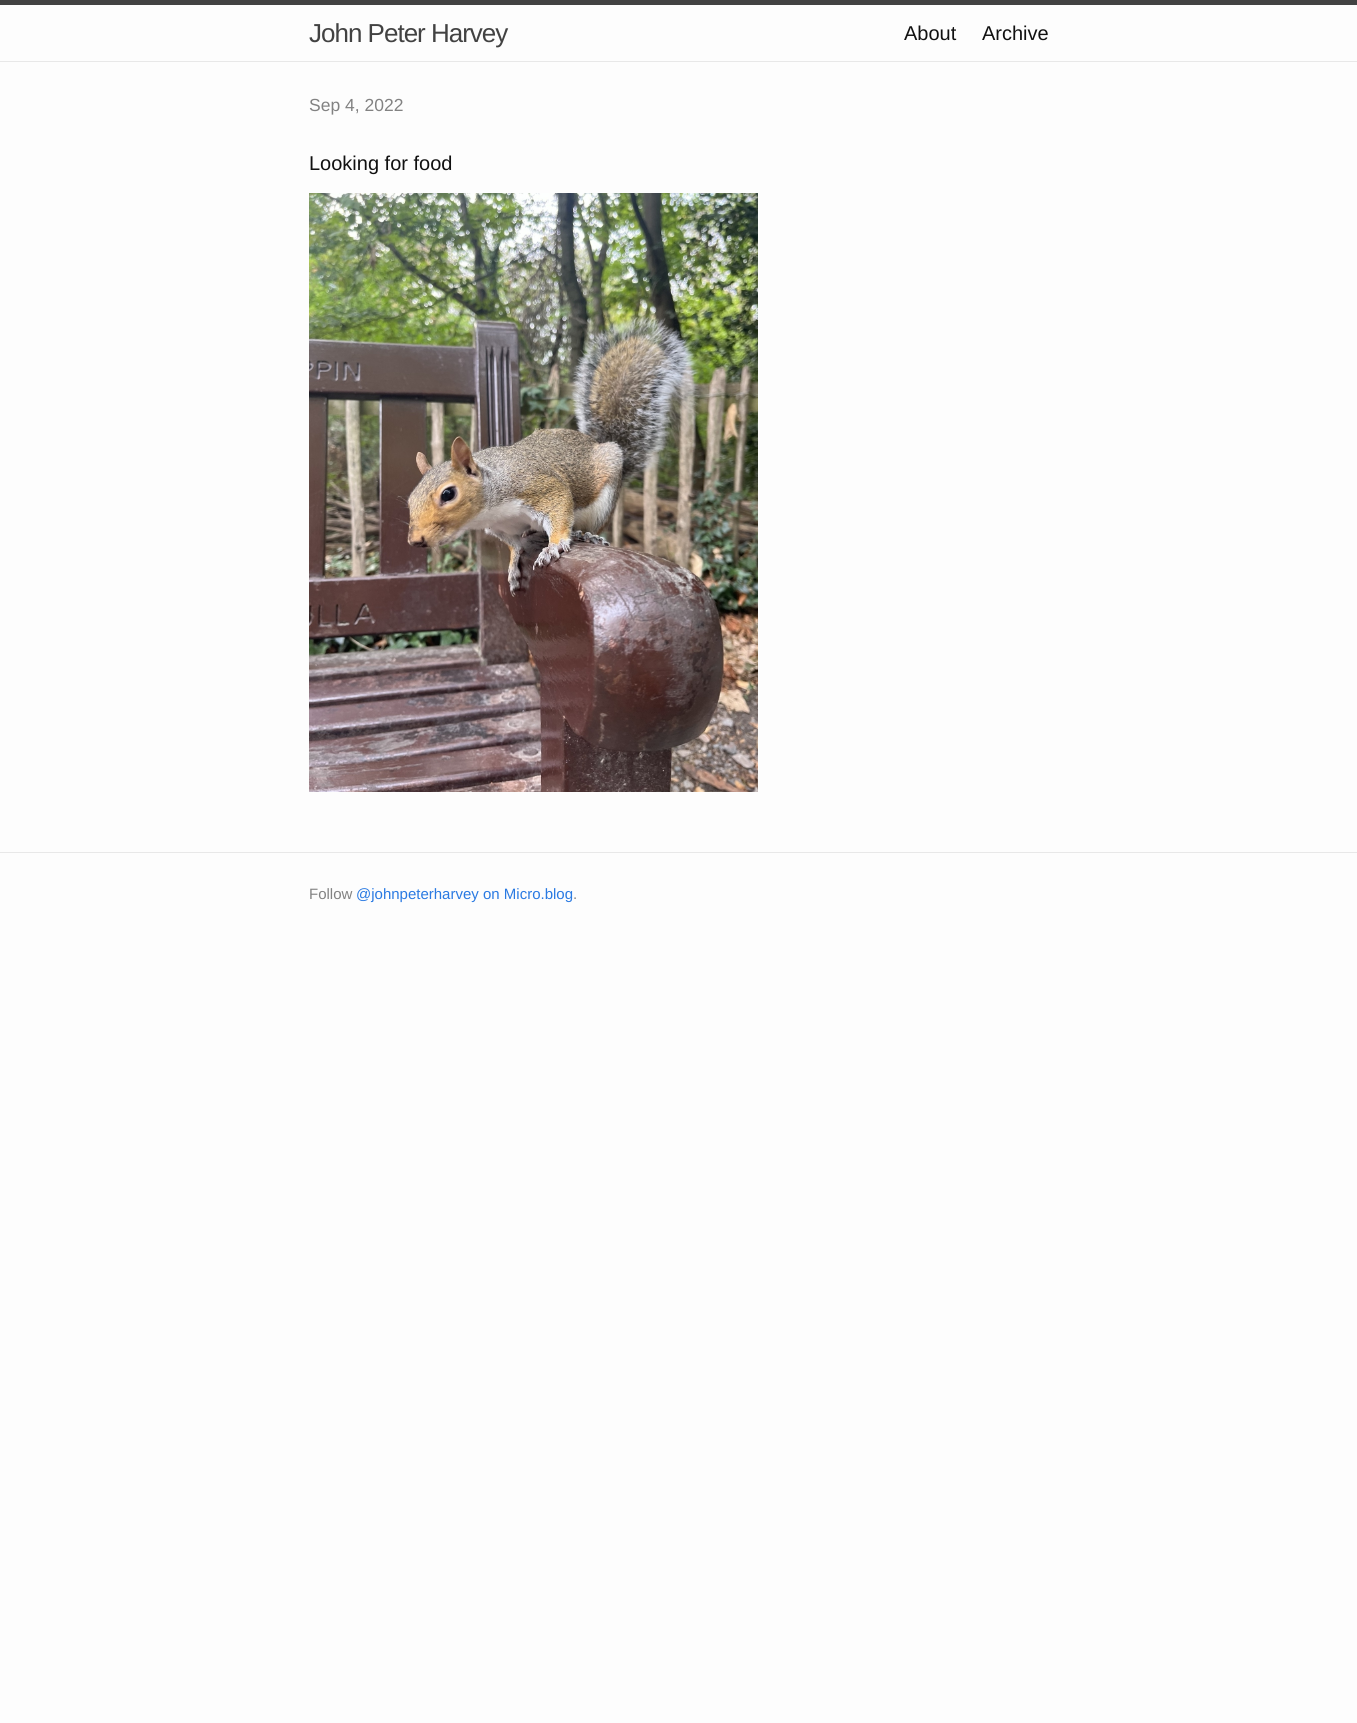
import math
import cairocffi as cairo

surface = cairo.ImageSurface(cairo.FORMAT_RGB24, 1357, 1723)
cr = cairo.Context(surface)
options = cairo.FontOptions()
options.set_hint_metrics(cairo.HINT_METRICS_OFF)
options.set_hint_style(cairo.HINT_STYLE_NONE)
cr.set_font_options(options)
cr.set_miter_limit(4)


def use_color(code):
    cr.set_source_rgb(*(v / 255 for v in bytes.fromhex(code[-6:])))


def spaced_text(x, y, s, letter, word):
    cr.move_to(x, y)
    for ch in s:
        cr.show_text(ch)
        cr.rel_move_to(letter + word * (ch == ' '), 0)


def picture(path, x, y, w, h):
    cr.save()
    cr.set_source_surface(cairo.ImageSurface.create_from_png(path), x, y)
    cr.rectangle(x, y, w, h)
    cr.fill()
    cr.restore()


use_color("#fdfdfd")
cr.paint()
use_color("#424242")
cr.rectangle(0, 0, 1357, 5)
cr.fill()
use_color("#e8e8e8")
cr.rectangle(0, 61, 1357, 1)
cr.fill()
cr.select_font_face("Liberation Sans")
cr.set_font_size(26)
use_color("#424242")
spaced_text(309, 42, "John Peter Harvey", -1, 0)
cr.set_font_size(20)
use_color("#111111")
cr.move_to(904, 40)
cr.show_text("About")
cr.move_to(982, 40)
cr.show_text("Archive")
cr.set_font_size(17.5)
use_color("#828282")
cr.move_to(309, 111)
cr.show_text("Sep 4, 2022")
cr.set_font_size(20)
use_color("#111111")
cr.move_to(309, 170)
cr.show_text("Looking for food")
picture("img1.png", 309, 193, 449, 599)
use_color("#e8e8e8")
cr.rectangle(0, 852, 1357, 1)
cr.fill()
cr.set_font_size(15)
use_color("#828282")
cr.move_to(309, 899)
cr.show_text("Follow")
use_color("#2a7ae2")
cr.move_to(356, 899)
cr.show_text("@johnpeterharvey on Micro.blog")
use_color("#828282")
cr.move_to(573, 899)
cr.show_text(".")
surface.write_to_png("result.png")
